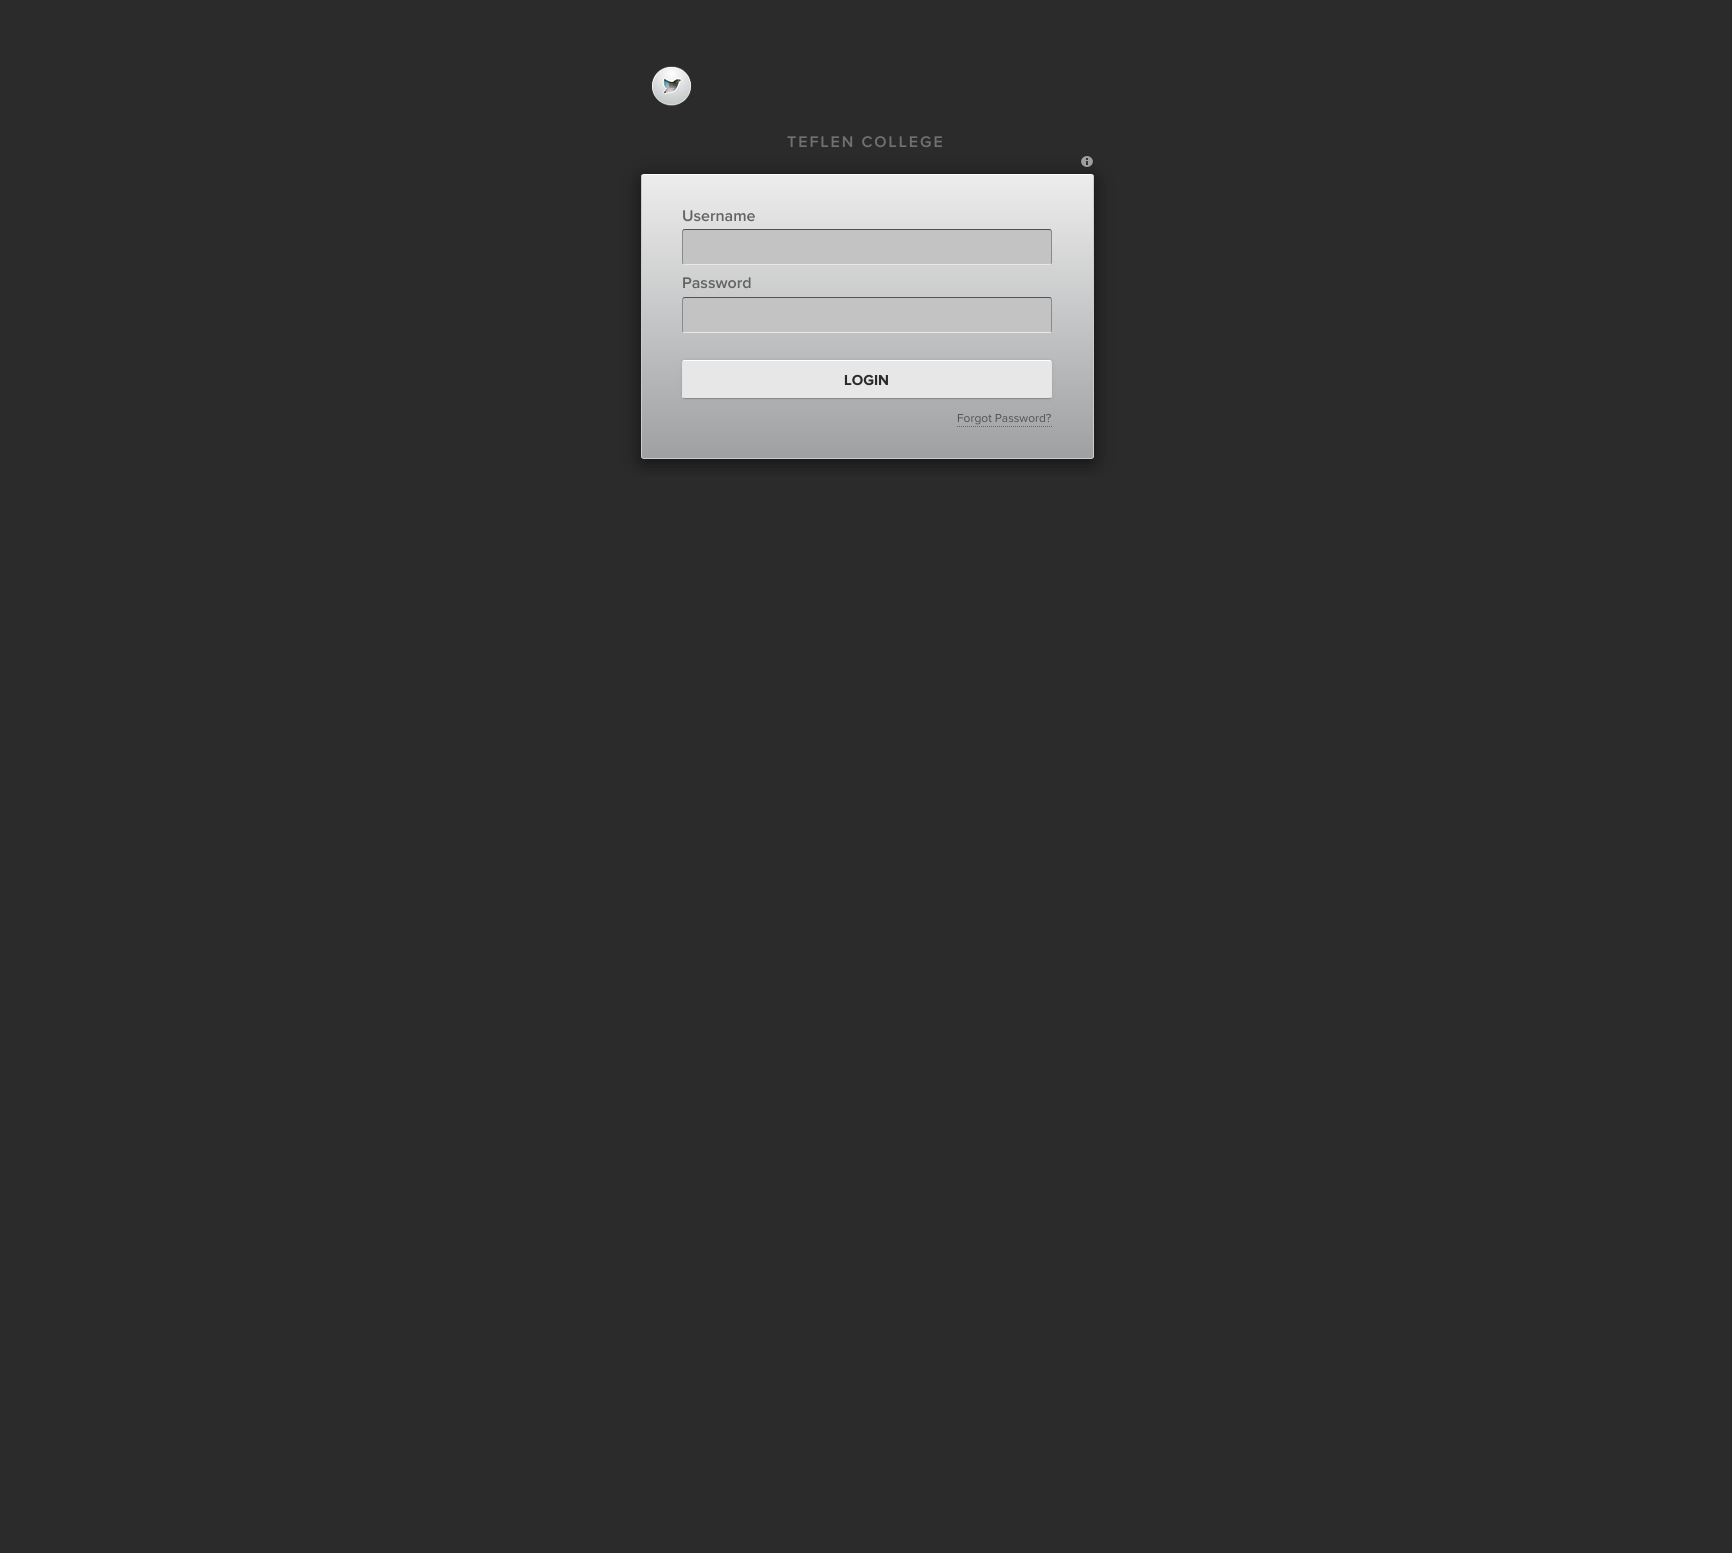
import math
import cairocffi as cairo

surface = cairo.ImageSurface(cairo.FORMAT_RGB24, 1732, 1553)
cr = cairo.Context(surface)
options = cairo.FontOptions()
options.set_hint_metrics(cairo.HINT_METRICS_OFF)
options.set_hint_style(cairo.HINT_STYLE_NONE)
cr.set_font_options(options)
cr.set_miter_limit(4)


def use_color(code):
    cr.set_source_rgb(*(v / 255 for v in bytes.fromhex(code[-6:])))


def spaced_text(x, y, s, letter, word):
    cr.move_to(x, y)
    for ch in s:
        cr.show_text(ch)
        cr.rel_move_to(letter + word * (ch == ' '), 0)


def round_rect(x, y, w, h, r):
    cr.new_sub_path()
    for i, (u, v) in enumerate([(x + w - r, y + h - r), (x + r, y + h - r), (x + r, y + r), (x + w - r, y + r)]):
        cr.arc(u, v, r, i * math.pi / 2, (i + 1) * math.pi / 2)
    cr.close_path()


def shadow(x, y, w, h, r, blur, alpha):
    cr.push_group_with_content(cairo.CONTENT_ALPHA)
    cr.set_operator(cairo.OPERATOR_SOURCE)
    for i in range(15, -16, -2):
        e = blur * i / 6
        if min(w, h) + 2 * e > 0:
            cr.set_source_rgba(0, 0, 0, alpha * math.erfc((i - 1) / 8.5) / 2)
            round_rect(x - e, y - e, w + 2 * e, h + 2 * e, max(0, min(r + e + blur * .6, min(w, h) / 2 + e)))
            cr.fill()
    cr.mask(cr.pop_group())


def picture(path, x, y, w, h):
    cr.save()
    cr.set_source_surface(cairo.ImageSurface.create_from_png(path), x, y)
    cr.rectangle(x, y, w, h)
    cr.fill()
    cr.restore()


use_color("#2b2b2b")
cr.paint()
picture("img1.png", 651, 66, 41, 40)
cr.save()
cr.rectangle(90, 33, 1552, 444)
cr.clip()
use_color("#000000")
shadow(641, 178, 453, 285, 3, 10, 0.6)
cr.restore()
cr.select_font_face("Proxima Nova SemiBold")
cr.set_font_size(16)
use_color("#717171")
spaced_text(787, 147, "TEFLEN COLLEGE", 2, 0)
picture("img2.png", 1080, 155, 14, 13)
cr.save()
round_rect(641, 174, 453, 285, 3)
cr.clip()
gradient = cairo.LinearGradient(868, 175, 868, 458)
gradient.add_color_stop_rgba(0, 0.929, 0.929, 0.929, 1)
gradient.add_color_stop_rgba(1, 0.62, 0.627, 0.635, 1)
cr.set_source(gradient)
cr.rectangle(641, 175, 453, 283)
cr.fill()
cr.restore()
cr.new_path()
cr.move_to(642, 175)
cr.line_to(644, 174.5)
cr.line_to(1091, 174.5)
cr.line_to(1093, 175)
use_color("#ffffff")
cr.set_line_width(1)
cr.stroke()
cr.new_path()
cr.move_to(1093, 175)
cr.line_to(1093.5, 177)
cr.line_to(1093.5, 456)
cr.curve_to(1093.5, 457.5, 1092.5, 458.5, 1091, 458.5)
cr.line_to(644, 458.5)
cr.curve_to(642.5, 458.5, 641.5, 457.5, 641.5, 456)
cr.line_to(641.5, 177)
cr.line_to(642, 175)
use_color("#cccccc")
cr.stroke()
use_color("#636363")
cr.move_to(682, 221)
cr.show_text("Username")
use_color("#c3c3c3")
round_rect(682, 229, 370, 36, 3)
cr.fill()
cr.new_path()
cr.move_to(683, 230)
cr.line_to(685, 229.5)
cr.line_to(1049, 229.5)
cr.line_to(1051, 230)
use_color("#525252")
cr.stroke()
cr.new_path()
cr.move_to(1051, 230)
cr.curve_to(1051, 230.5, 1051.5, 231.5, 1051.5, 232)
cr.line_to(1051.5, 262)
cr.curve_to(1051.5, 262.5, 1051, 263.5, 1051, 264)
use_color("#8a8a8a")
cr.stroke()
cr.new_path()
cr.move_to(1051, 264)
cr.line_to(1049, 264.5)
cr.line_to(685, 264.5)
cr.line_to(683, 264)
use_color("#e8e8e8")
cr.stroke()
cr.new_path()
cr.move_to(683, 264)
cr.curve_to(683, 263.5, 682.5, 262.5, 682.5, 262)
cr.line_to(682.5, 232)
cr.curve_to(682.5, 231.5, 683, 230.5, 683, 230)
use_color("#8a8a8a")
cr.stroke()
use_color("#636363")
cr.move_to(682, 288)
cr.show_text("Password")
use_color("#c3c3c3")
round_rect(682, 297, 370, 36, 3)
cr.fill()
cr.new_path()
cr.move_to(683, 298)
cr.line_to(685, 297.5)
cr.line_to(1049, 297.5)
cr.line_to(1051, 298)
use_color("#525252")
cr.stroke()
cr.new_path()
cr.move_to(1051, 298)
cr.curve_to(1051, 298.5, 1051.5, 299.5, 1051.5, 300)
cr.line_to(1051.5, 330)
cr.curve_to(1051.5, 330.5, 1051, 331.5, 1051, 332)
use_color("#8a8a8a")
cr.stroke()
cr.new_path()
cr.move_to(1051, 332)
cr.line_to(1049, 332.5)
cr.line_to(685, 332.5)
cr.line_to(683, 332)
use_color("#e8e8e8")
cr.stroke()
cr.new_path()
cr.move_to(683, 332)
cr.curve_to(683, 331.5, 682.5, 330.5, 682.5, 330)
cr.line_to(682.5, 300)
cr.curve_to(682.5, 299.5, 683, 298.5, 683, 298)
use_color("#8a8a8a")
cr.stroke()
use_color("#000000")
shadow(682, 360, 370, 39, 3, 2, 0.1)
use_color("#e7e7e7")
round_rect(682, 360, 370, 39, 3)
cr.fill()
cr.new_path()
cr.move_to(683, 361)
cr.line_to(685, 360.5)
cr.line_to(1049, 360.5)
cr.line_to(1051, 361)
use_color("#ffffff")
cr.stroke()
cr.new_path()
cr.move_to(1051, 361)
cr.curve_to(1051, 361.5, 1051.5, 362.5, 1051.5, 363)
cr.line_to(1051.5, 396)
cr.curve_to(1051.5, 396.5, 1051, 397.5, 1051, 398)
use_color("#e4e4e4")
cr.stroke()
cr.new_path()
cr.move_to(1051, 398)
cr.line_to(1049, 398.5)
cr.line_to(685, 398.5)
cr.line_to(683, 398)
use_color("#8b8b8b")
cr.stroke()
cr.new_path()
cr.move_to(683, 398)
cr.curve_to(683, 397.5, 682.5, 396.5, 682.5, 396)
cr.line_to(682.5, 363)
cr.curve_to(682.5, 362.5, 683, 361.5, 683, 361)
use_color("#e4e4e4")
cr.stroke()
cr.select_font_face("Proxima Nova", cairo.FONT_SLANT_NORMAL, cairo.FONT_WEIGHT_BOLD)
cr.set_font_size(15)
use_color("#2b2b2b")
cr.move_to(844, 385)
cr.show_text("LOGIN")
cr.new_path()
cr.move_to(957, 426.5)
cr.line_to(1052, 426.5)
use_color("#666666")
cr.set_dash([1, 1])
cr.stroke()
cr.select_font_face("Proxima Nova")
cr.set_font_size(12)
use_color("#525252")
cr.move_to(957, 422)
cr.show_text("Forgot Password?")
surface.write_to_png("result.png")
